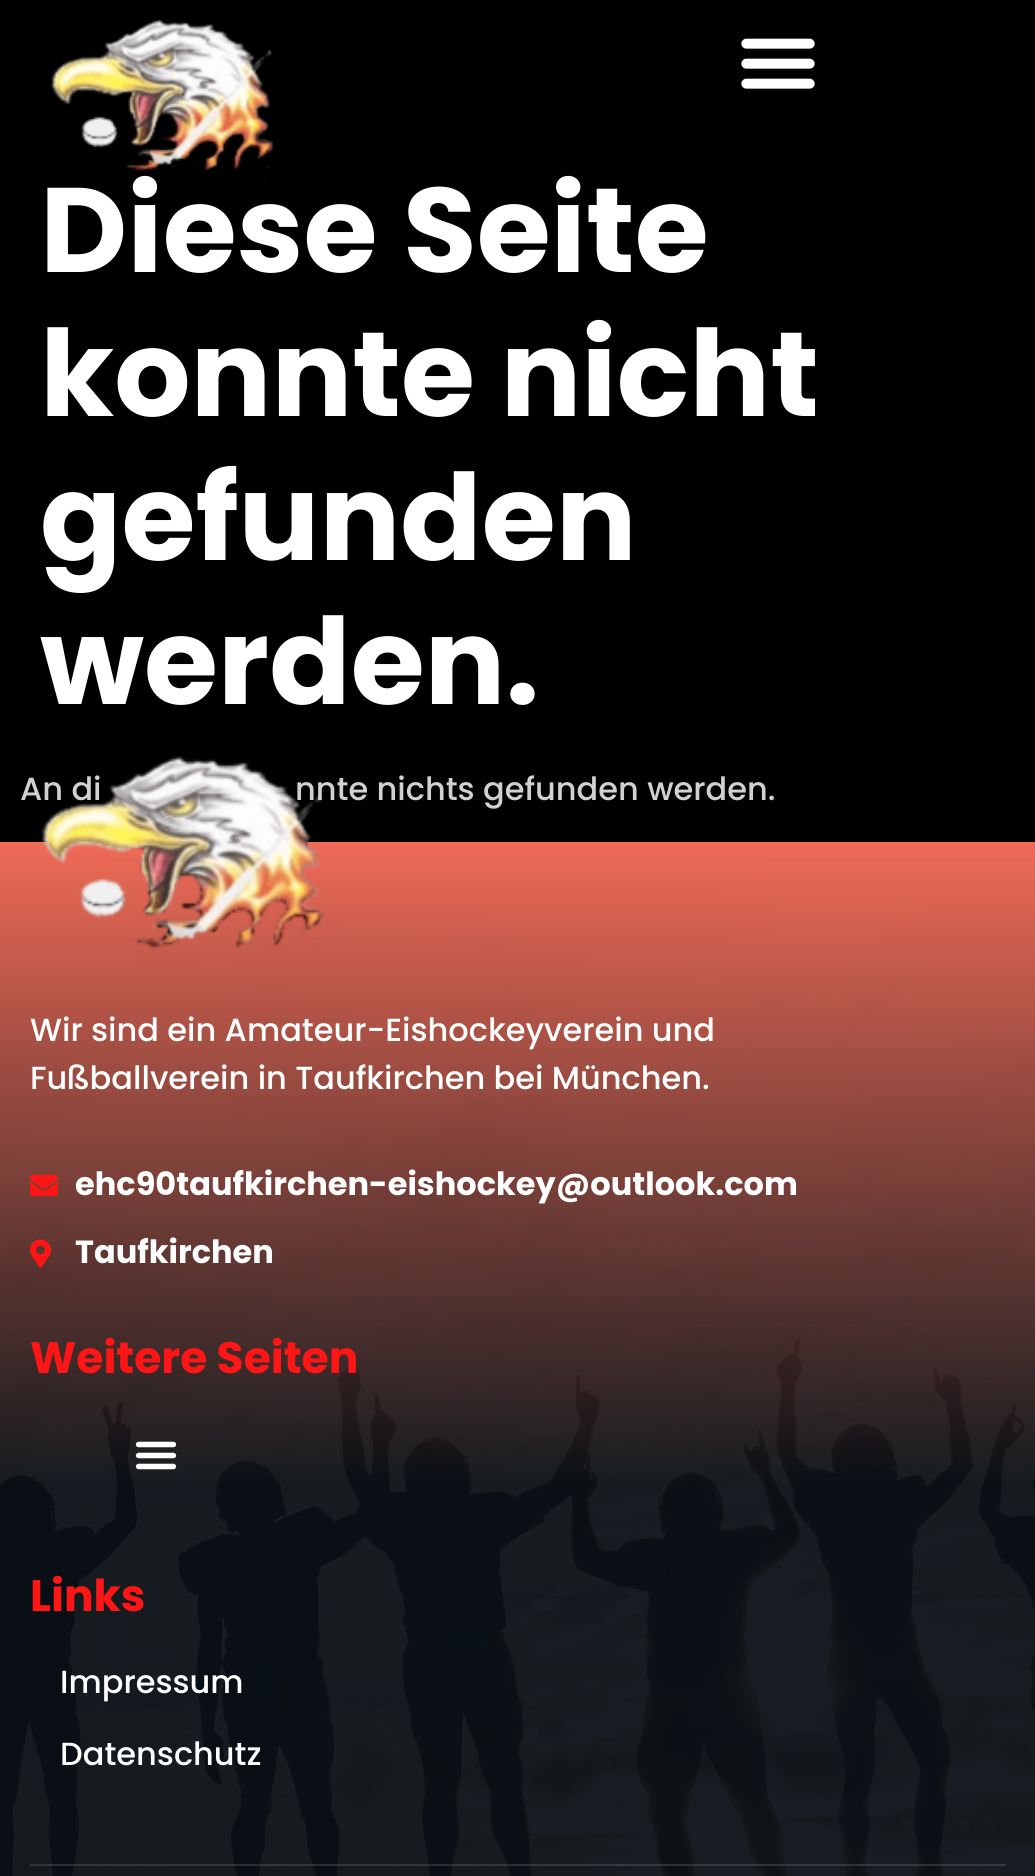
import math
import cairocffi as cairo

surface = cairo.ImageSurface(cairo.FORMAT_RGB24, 1035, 1876)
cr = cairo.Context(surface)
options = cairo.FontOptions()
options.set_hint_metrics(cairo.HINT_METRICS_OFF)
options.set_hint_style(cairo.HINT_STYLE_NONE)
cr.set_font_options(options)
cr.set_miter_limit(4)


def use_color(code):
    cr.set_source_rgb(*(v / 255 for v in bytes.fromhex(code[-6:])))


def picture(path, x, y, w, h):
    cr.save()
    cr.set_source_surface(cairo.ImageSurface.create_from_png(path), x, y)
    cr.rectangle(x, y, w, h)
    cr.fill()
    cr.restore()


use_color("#000000")
cr.paint()
cr.select_font_face("Poppins", cairo.FONT_SLANT_NORMAL, cairo.FONT_WEIGHT_BOLD)
cr.set_font_size(120)
use_color("#ffffff")
cr.move_to(40, 272)
cr.show_text("Diese Seite")
picture("img1.png", 50, 19, 224, 164)
picture("img2.png", 741, 38, 74, 51)
cr.move_to(40, 416)
cr.show_text("konnte nicht")
cr.move_to(40, 560)
cr.show_text("gefunden")
cr.move_to(40, 704)
cr.show_text("werden.")
cr.select_font_face("Poppins Medium")
cr.set_font_size(32)
use_color("#d1d1d1")
cr.move_to(20, 800)
cr.show_text("An di")
cr.move_to(295, 800)
cr.show_text("nnte nichts gefunden werden.")
picture("img3.png", 0, 842, 1035, 1034)
picture("img4.png", 41, 756, 284, 205)
use_color("#ffffff")
cr.move_to(30, 1041)
cr.show_text("Wir sind ein Amateur-Eishockeyverein und")
cr.move_to(30, 1089)
cr.show_text("Fußballverein in Taufkirchen bei München.")
picture("img5.png", 30, 1175, 28, 21)
cr.select_font_face("Poppins", cairo.FONT_SLANT_NORMAL, cairo.FONT_WEIGHT_BOLD)
cr.move_to(75, 1195)
cr.show_text("ehc90taufkirchen-eishockey@outlook.com")
picture("img6.png", 30, 1239, 21, 29)
cr.move_to(75, 1263)
cr.show_text("Taufkirchen")
cr.set_font_size(44)
use_color("#fe1616")
cr.move_to(30, 1373)
cr.show_text("Weitere Seiten")
picture("img7.png", 135, 1441, 42, 29)
cr.move_to(30, 1611)
cr.show_text("Links")
cr.select_font_face("Poppins Medium")
cr.set_font_size(32)
use_color("#ffffff")
cr.move_to(60, 1693)
cr.show_text("Impressum")
cr.move_to(60, 1765)
cr.show_text("Datenschutz")
cr.set_source_rgba(1, 1, 1, 0.13)
cr.rectangle(30, 1864, 976, 2)
cr.fill()
surface.write_to_png("result.png")
